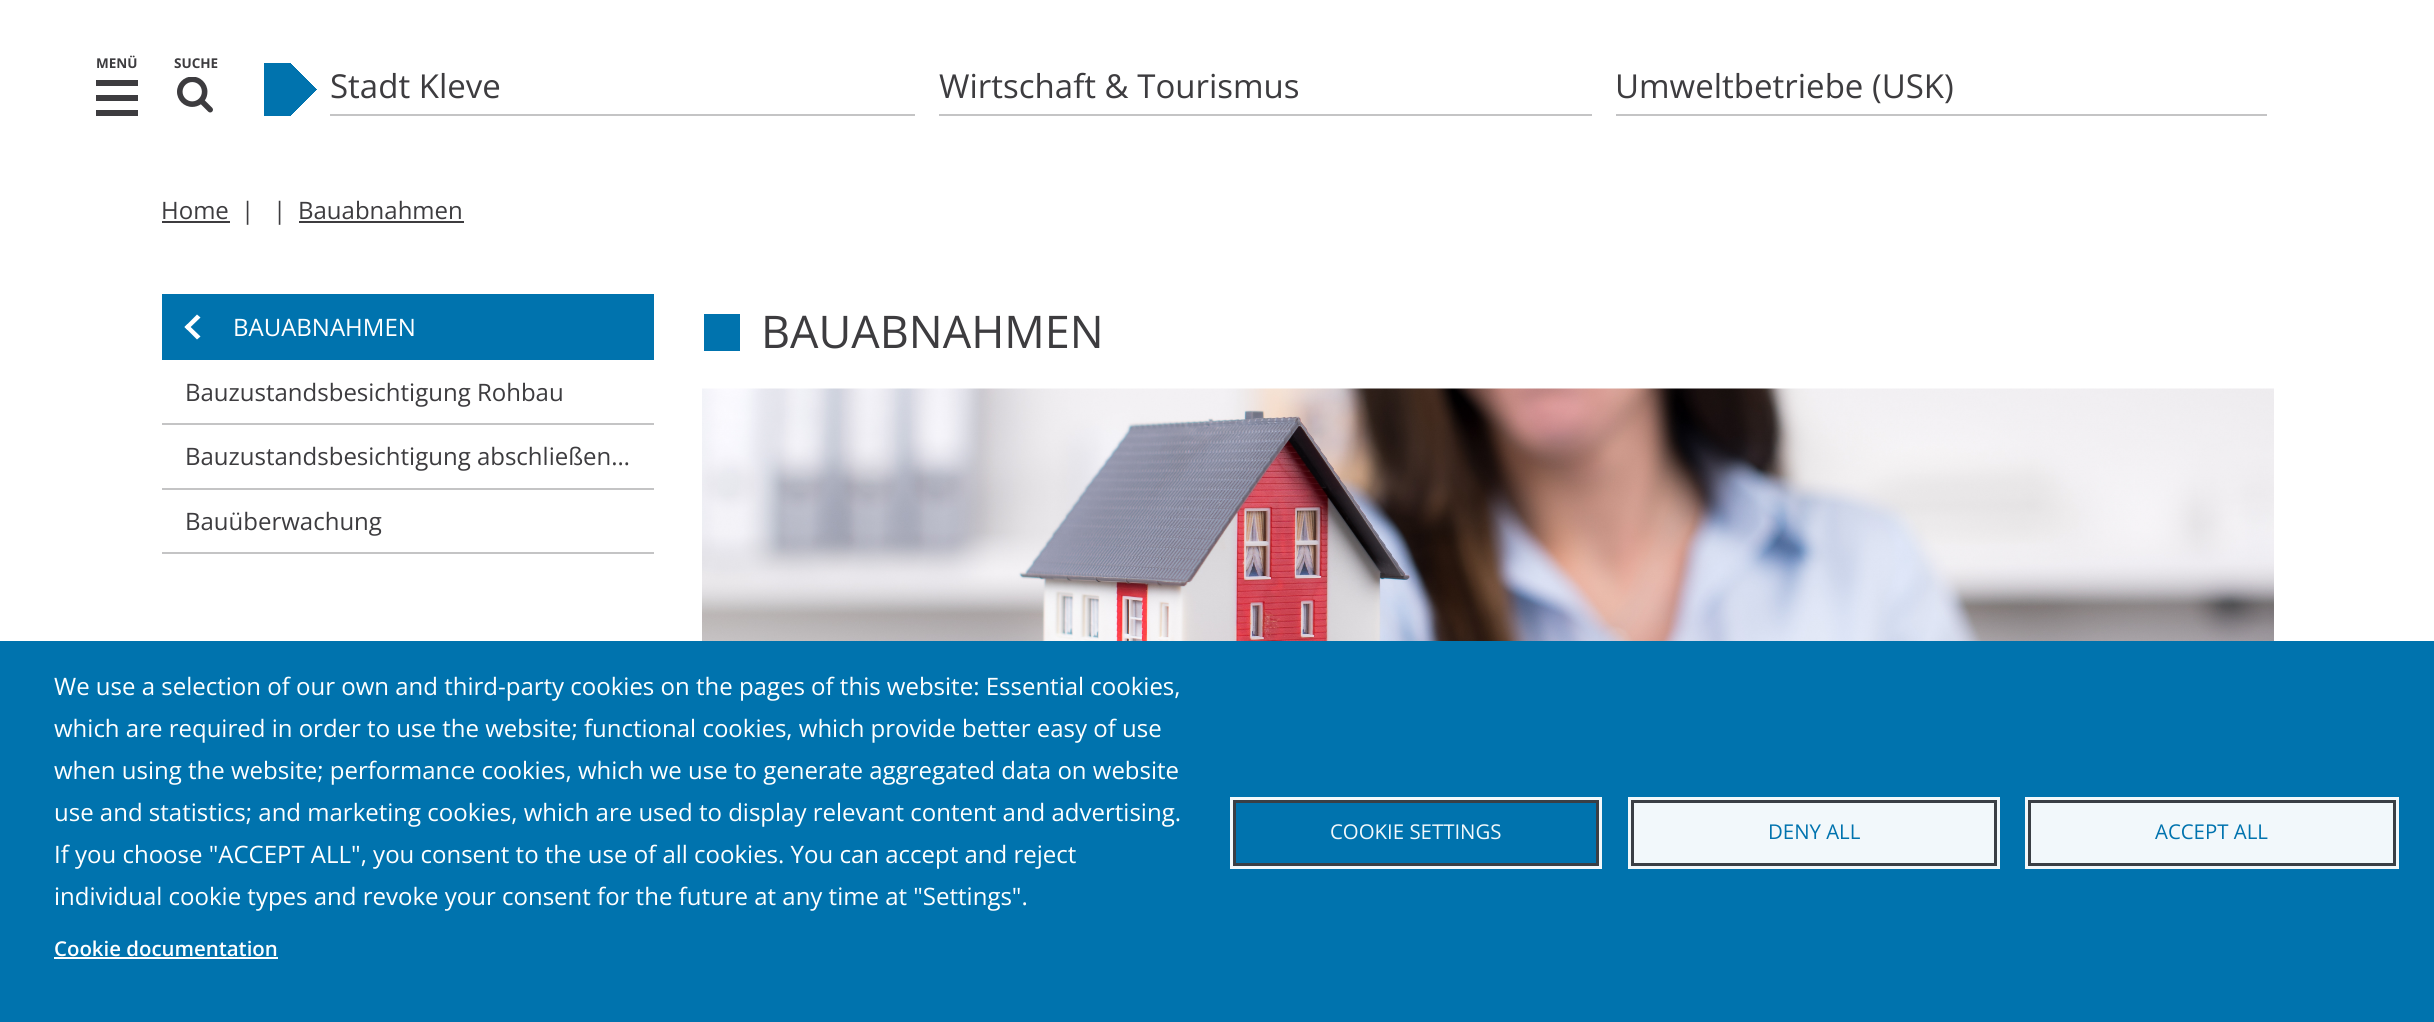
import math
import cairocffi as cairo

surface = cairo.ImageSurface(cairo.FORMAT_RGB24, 2434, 1022)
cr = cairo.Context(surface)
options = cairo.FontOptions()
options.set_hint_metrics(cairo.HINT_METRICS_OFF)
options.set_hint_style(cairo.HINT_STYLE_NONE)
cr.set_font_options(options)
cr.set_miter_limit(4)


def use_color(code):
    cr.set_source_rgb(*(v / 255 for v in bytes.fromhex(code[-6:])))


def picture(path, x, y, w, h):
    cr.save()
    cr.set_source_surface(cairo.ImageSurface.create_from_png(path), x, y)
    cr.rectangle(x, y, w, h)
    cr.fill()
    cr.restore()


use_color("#ffffff")
cr.paint()
cr.select_font_face("Open Sans", cairo.FONT_SLANT_NORMAL, cairo.FONT_WEIGHT_BOLD)
cr.set_font_size(13.5)
use_color("#3d3c3f")
cr.move_to(96, 68)
cr.show_text("MENÜ")
cr.rectangle(96, 80, 42, 6)
cr.fill()
cr.rectangle(96, 95, 42, 6)
cr.fill()
cr.rectangle(96, 110, 42, 6)
cr.fill()
picture("img1.png", 177, 77, 36, 36)
cr.move_to(174, 68)
cr.show_text("SUCHE")
use_color("#c4c4c5")
cr.rectangle(330, 114, 585, 2)
cr.fill()
gradient = cairo.LinearGradient(317, 116, 264, 63)
gradient.add_color_stop_rgba(0.25, 1, 1, 1, 1)
gradient.add_color_stop_rgba(0.25, 0, 0.451, 0.682, 1)
cr.set_source(gradient)
cr.rectangle(264, 63, 53, 53)
cr.fill()
gradient = cairo.LinearGradient(264, 116, 317, 63)
gradient.add_color_stop_rgba(0.75, 1, 1, 1, 0)
gradient.add_color_stop_rgba(0.75, 1, 1, 1, 1)
cr.set_source(gradient)
cr.rectangle(291, 63, 26, 26)
cr.fill()
cr.select_font_face("Open Sans")
cr.set_font_size(33)
use_color("#3d3c3f")
cr.move_to(330, 98)
cr.show_text("Stadt Kleve")
use_color("#c4c4c5")
cr.rectangle(939, 114, 653, 2)
cr.fill()
use_color("#3d3c3f")
cr.move_to(939, 98)
cr.show_text("Wirtschaft & Tourismus")
use_color("#c4c4c5")
cr.rectangle(1616, 114, 651, 2)
cr.fill()
use_color("#3d3c3f")
cr.move_to(1615, 98)
cr.show_text("Umweltbetriebe (USK)")
cr.set_font_size(24)
cr.move_to(161, 219)
cr.show_text("Home")
cr.rectangle(162, 221, 68, 2)
cr.fill()
cr.move_to(241, 219)
cr.show_text("|")
cr.move_to(273, 219)
cr.show_text("|")
cr.move_to(298, 219)
cr.show_text("Bauabnahmen")
cr.rectangle(299, 221, 165, 2)
cr.fill()
use_color("#0073ae")
cr.rectangle(162, 294, 492, 66)
cr.fill()
use_color("#ffffff")
cr.new_path()
cr.move_to(200.5, 336.5)
cr.line_to(197, 339.5)
cr.line_to(184.5, 327)
cr.line_to(187.5, 324)
cr.close_path()
cr.fill()
cr.new_path()
cr.move_to(200.5, 317.5)
cr.line_to(187.5, 330)
cr.line_to(184.5, 327)
cr.line_to(197, 314.5)
cr.close_path()
cr.fill()
cr.move_to(233, 336)
cr.show_text("BAUABNAHMEN")
use_color("#c4c4c5")
cr.rectangle(162, 423, 492, 2)
cr.fill()
use_color("#3d3c3f")
cr.move_to(185, 401)
cr.show_text("Bauzustandsbesichtigung Rohbau")
use_color("#c4c4c5")
cr.rectangle(162, 488, 492, 2)
cr.fill()
use_color("#3d3c3f")
cr.move_to(185, 465)
cr.show_text("Bauzustandsbesichtigung abschließen…")
use_color("#c4c4c5")
cr.rectangle(162, 552, 492, 2)
cr.fill()
use_color("#3d3c3f")
cr.move_to(185, 530)
cr.show_text("Bauüberwachung")
use_color("#0073ae")
cr.rectangle(704, 314, 36, 37)
cr.fill()
cr.set_font_size(45)
use_color("#3d3c3f")
cr.move_to(761, 348)
cr.show_text("BAUABNAHMEN")
picture("img2.png", 702, 388, 1572, 253)
use_color("#0073ae")
cr.rectangle(0, 641, 2434, 381)
cr.fill()
cr.set_font_size(24)
use_color("#ffffff")
cr.move_to(54, 695)
cr.show_text("We use a selection of our own and third-party cookies on the pages of this website: Essential cookies,")
cr.move_to(54, 737)
cr.show_text("which are required in order to use the website; functional cookies, which provide better easy of use")
cr.move_to(54, 779)
cr.show_text("when using the website; performance cookies, which we use to generate aggregated data on website")
cr.move_to(54, 821)
cr.show_text("use and statistics; and marketing cookies, which are used to display relevant content and advertising.")
cr.move_to(54, 863)
cr.show_text("If you choose \"ACCEPT ALL\", you consent to the use of all cookies. You can accept and reject")
cr.move_to(54, 905)
cr.show_text("individual cookie types and revoke your consent for the future at any time at \"Settings\".")
cr.select_font_face("Open Sans SemiBold")
cr.set_font_size(20.4)
cr.move_to(54, 956)
cr.show_text("Cookie documentation")
cr.rectangle(54, 957, 224, 2)
cr.fill()
cr.rectangle(1234.5, 801.5, 363, 63)
use_color("#3a3f45")
cr.set_line_width(3)
cr.stroke()
cr.rectangle(1231.5, 798.5, 369, 69)
use_color("#f2f8fb")
cr.stroke()
cr.select_font_face("Open Sans")
cr.move_to(1330, 839)
cr.show_text("COOKIE SETTINGS")
cr.rectangle(1628, 797, 372, 72)
cr.fill()
cr.rectangle(1632.5, 801.5, 363, 63)
use_color("#3a3f45")
cr.stroke()
use_color("#0073ae")
cr.move_to(1768, 839)
cr.show_text("DENY ALL")
use_color("#f2f8fb")
cr.rectangle(2025, 797, 374, 72)
cr.fill()
cr.rectangle(2029.5, 801.5, 365, 63)
use_color("#3a3f45")
cr.stroke()
use_color("#0073ae")
cr.move_to(2155, 839)
cr.show_text("ACCEPT ALL")
surface.write_to_png("result.png")
